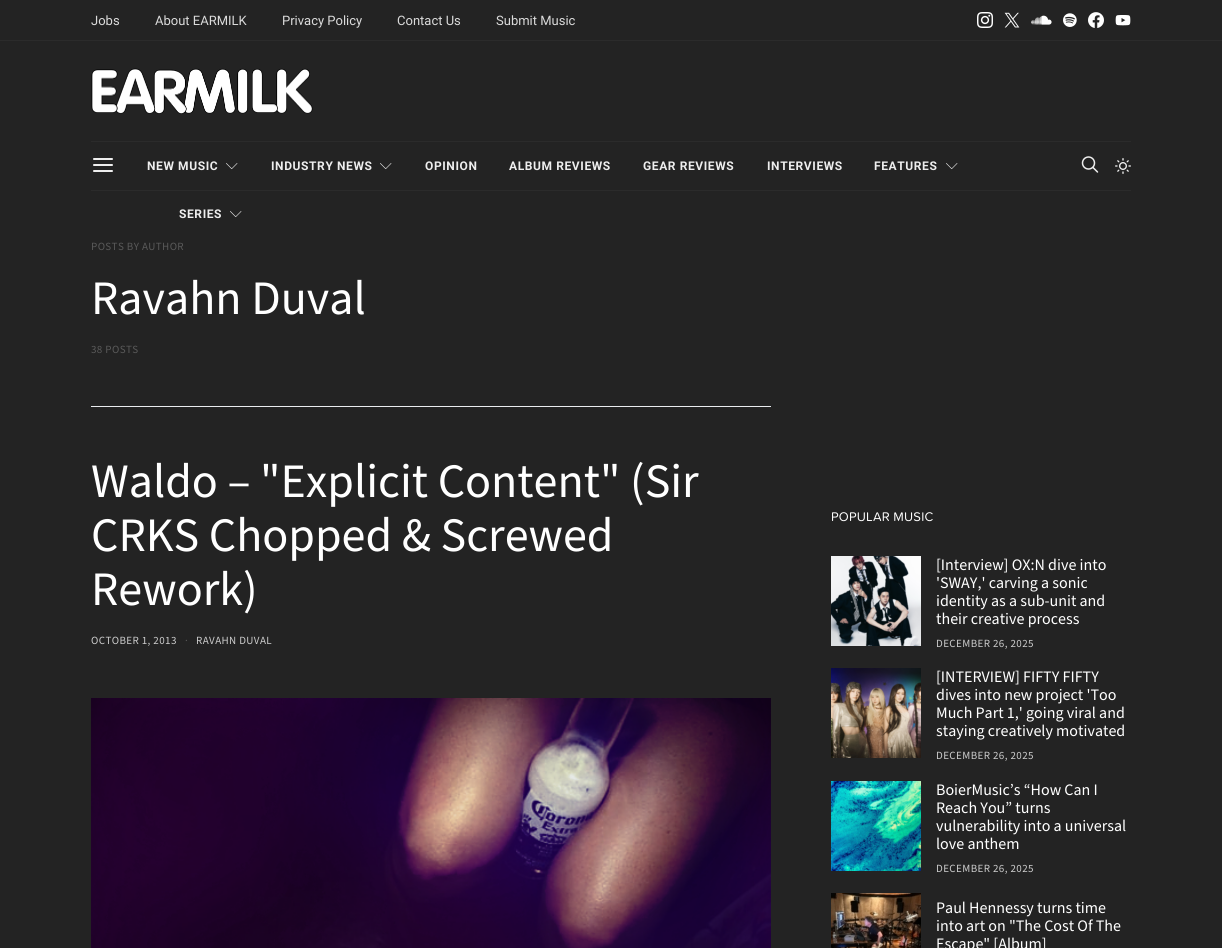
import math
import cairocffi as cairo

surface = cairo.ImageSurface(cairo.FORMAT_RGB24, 1222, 948)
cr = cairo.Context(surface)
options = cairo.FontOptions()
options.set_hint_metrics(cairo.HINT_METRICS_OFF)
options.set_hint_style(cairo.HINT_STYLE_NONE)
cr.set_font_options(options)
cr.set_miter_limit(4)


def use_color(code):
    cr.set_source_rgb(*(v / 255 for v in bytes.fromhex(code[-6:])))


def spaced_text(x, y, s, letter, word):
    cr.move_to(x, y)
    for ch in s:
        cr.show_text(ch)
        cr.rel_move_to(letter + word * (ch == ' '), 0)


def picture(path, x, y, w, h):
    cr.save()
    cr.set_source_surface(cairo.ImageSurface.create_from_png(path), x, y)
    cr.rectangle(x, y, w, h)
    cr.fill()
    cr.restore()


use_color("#232323")
cr.paint()
use_color("#2b2b2b")
cr.rectangle(0, 40, 1222, 1)
cr.fill()
cr.select_font_face("Roboto")
cr.set_font_size(13)
use_color("#dbdbdb")
cr.move_to(91, 25)
cr.show_text("Jobs")
cr.move_to(155, 25)
cr.show_text("About EARMILK")
cr.move_to(282, 25)
cr.show_text("Privacy Policy")
cr.move_to(397, 25)
cr.show_text("Contact Us")
cr.move_to(496, 25)
cr.show_text("Submit Music")
picture("img1.png", 977, 12, 16, 16)
picture("img2.png", 1004, 12, 16, 16)
picture("img3.png", 1031, 15, 21, 10)
picture("img4.png", 1063, 13, 14, 14)
picture("img5.png", 1088, 12, 16, 16)
picture("img6.png", 1115, 15, 16, 11)
picture("img7.png", 91, 68, 222, 46)
use_color("#2b2b2b")
cr.rectangle(91, 141, 1040, 1)
cr.fill()
cr.rectangle(91, 190, 1040, 1)
cr.fill()
picture("img8.png", 93, 158, 20, 14)
cr.select_font_face("Roboto", cairo.FONT_SLANT_NORMAL, cairo.FONT_WEIGHT_BOLD)
cr.set_font_size(12)
use_color("#eeeeee")
spaced_text(147, 170, "NEW MUSIC", 0.6, 0)
picture("img9.png", 226, 163, 12, 6)
spaced_text(271, 170, "INDUSTRY NEWS", 0.6, 0)
picture("img9.png", 380, 163, 12, 6)
spaced_text(425, 170, "OPINION", 0.6, 0)
spaced_text(509, 170, "ALBUM REVIEWS", 0.6, 0)
spaced_text(643, 170, "GEAR REVIEWS", 0.6, 0)
spaced_text(767, 170, "INTERVIEWS", 0.6, 0)
spaced_text(874, 170, "FEATURES", 0.6, 0)
picture("img9.png", 946, 163, 12, 6)
spaced_text(179, 218, "SERIES", 0.6, 0)
picture("img9.png", 230, 211, 12, 6)
picture("img10.png", 1081, 156, 18, 17)
picture("img11.png", 1115, 158, 16, 16)
cr.select_font_face("Source Sans Pro")
cr.set_font_size(11)
use_color("#595959")
spaced_text(91, 250, "POSTS BY AUTHOR", 0.4, 0)
cr.set_font_size(48)
use_color("#ffffff")
cr.move_to(91, 314)
cr.show_text("Ravahn Duval")
cr.set_font_size(11)
use_color("#595959")
spaced_text(91, 353, "38 POSTS", 0.4, 0)
use_color("#e9ecef")
cr.rectangle(91, 406, 680, 1)
cr.fill()
cr.set_font_size(48)
use_color("#ffffff")
cr.move_to(91, 497)
cr.show_text("Waldo – \"Explicit Content\" (Sir")
cr.move_to(91, 551)
cr.show_text("CRKS Chopped & Screwed")
cr.move_to(91, 605)
cr.show_text("Rework)")
cr.set_font_size(11)
use_color("#cccccc")
spaced_text(91, 644, "OCTOBER 1, 2013", 0.4, 0)
use_color("#595959")
spaced_text(185, 644, "·", 0.4, 0)
use_color("#cccccc")
spaced_text(196, 644, "RAVAHN DUVAL", 0.4, 0)
picture("img12.png", 91, 698, 680, 250)
cr.select_font_face("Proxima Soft")
cr.set_font_size(13)
use_color("#ffffff")
spaced_text(831, 521, "POPULAR MUSIC", 0.2, 0)
picture("img13.png", 831, 556, 90, 90)
cr.select_font_face("Source Sans Pro")
cr.set_font_size(16)
cr.move_to(936, 570)
cr.show_text("[Interview] OX:N dive into")
cr.move_to(936, 588)
cr.show_text("'SWAY,' carving a sonic")
cr.move_to(936, 606)
cr.show_text("identity as a sub-unit and")
cr.move_to(936, 624)
cr.show_text("their creative process")
cr.set_font_size(11)
use_color("#cccccc")
spaced_text(936, 647, "DECEMBER 26, 2025", 0.4, 0)
picture("img14.png", 831, 668, 90, 90)
cr.set_font_size(16)
use_color("#ffffff")
cr.move_to(936, 682)
cr.show_text("[INTERVIEW] FIFTY FIFTY")
cr.move_to(936, 700)
cr.show_text("dives into new project 'Too")
cr.move_to(936, 718)
cr.show_text("Much Part 1,' going viral and")
cr.move_to(936, 736)
cr.show_text("staying creatively motivated")
cr.set_font_size(11)
use_color("#cccccc")
spaced_text(936, 759, "DECEMBER 26, 2025", 0.4, 0)
picture("img15.png", 831, 781, 90, 90)
cr.set_font_size(16)
use_color("#ffffff")
cr.move_to(936, 795)
cr.show_text("BoierMusic’s “How Can I")
cr.move_to(936, 813)
cr.show_text("Reach You” turns")
cr.move_to(936, 831)
cr.show_text("vulnerability into a universal")
cr.move_to(936, 849)
cr.show_text("love anthem")
cr.set_font_size(11)
use_color("#cccccc")
spaced_text(936, 872, "DECEMBER 26, 2025", 0.4, 0)
picture("img16.png", 831, 893, 90, 55)
cr.set_font_size(16)
use_color("#ffffff")
cr.move_to(936, 913)
cr.show_text("Paul Hennessy turns time")
cr.move_to(936, 931)
cr.show_text("into art on \"The Cost Of The")
cr.move_to(936, 949)
cr.show_text("Escape\" [Album]")
surface.write_to_png("result.png")
